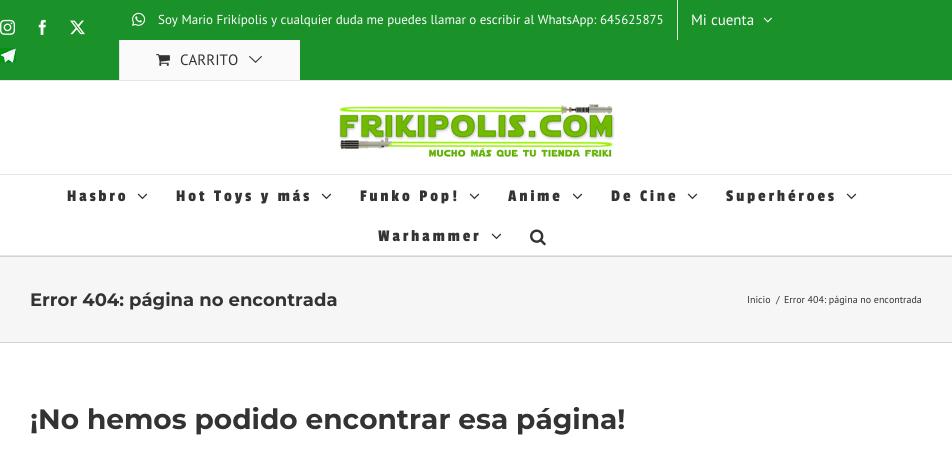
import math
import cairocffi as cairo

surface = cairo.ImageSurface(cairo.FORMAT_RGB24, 952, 473)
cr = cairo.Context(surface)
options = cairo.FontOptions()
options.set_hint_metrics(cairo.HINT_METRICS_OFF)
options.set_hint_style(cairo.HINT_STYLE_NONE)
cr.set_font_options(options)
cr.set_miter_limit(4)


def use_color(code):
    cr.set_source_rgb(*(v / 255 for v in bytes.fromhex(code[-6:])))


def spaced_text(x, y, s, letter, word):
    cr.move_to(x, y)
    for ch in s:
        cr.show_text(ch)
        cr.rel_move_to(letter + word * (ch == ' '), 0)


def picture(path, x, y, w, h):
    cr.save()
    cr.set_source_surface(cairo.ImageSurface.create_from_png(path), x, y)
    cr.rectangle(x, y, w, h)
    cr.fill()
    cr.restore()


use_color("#ffffff")
cr.paint()
use_color("#1a9129")
cr.rectangle(0, 0, 952, 80)
cr.fill()
use_color("#e5e5e5")
cr.rectangle(0, 80, 952, 1)
cr.fill()
picture("img1.png", 0, 19, 15, 16)
picture("img2.png", 38, 19, 8, 16)
picture("img3.png", 70, 20, 15, 15)
picture("img4.png", 0, 48, 16, 15)
picture("img5.png", 132, 12, 14, 14)
cr.select_font_face("PT Sans")
cr.set_font_size(13)
use_color("#ffffff")
cr.move_to(158, 24)
cr.show_text("Soy Mario Frikípolis y cualquier duda me puedes llamar o escribir al WhatsApp: 645625875")
use_color("#e5e5e5")
cr.rectangle(677, 0, 1, 40)
cr.fill()
cr.set_font_size(15)
use_color("#ffffff")
cr.move_to(691, 25)
cr.show_text("Mi cuenta")
picture("img6.png", 763, 17, 9, 6)
use_color("#e5e5e5")
cr.rectangle(119, 40, 1, 40)
cr.fill()
use_color("#fafafa")
cr.rectangle(120, 40, 180, 40)
cr.fill()
picture("img7.png", 156, 54, 14, 12)
use_color("#333333")
cr.move_to(180, 65)
cr.show_text("CARRITO")
picture("img8.png", 249, 56, 13, 7)
use_color("#e5e5e5")
cr.rectangle(0, 174, 952, 1)
cr.fill()
picture("img9.png", 338, 104, 277, 57)
cr.rectangle(0, 255, 952, 1)
cr.fill()
cr.select_font_face("Passion One")
cr.set_font_size(17)
use_color("#333333")
spaced_text(67, 201, "Hasbro", 3, 0)
picture("img10.png", 137, 193, 11, 7)
spaced_text(176, 201, "Hot Toys y más", 3, 0)
picture("img10.png", 321, 193, 11, 7)
spaced_text(360, 201, "Funko Pop!", 3, 0)
picture("img10.png", 469, 193, 11, 7)
spaced_text(508, 201, "Anime", 3, 0)
picture("img10.png", 572, 193, 11, 7)
spaced_text(611, 201, "De Cine", 3, 0)
picture("img10.png", 687, 193, 11, 7)
spaced_text(726, 201, "Superhéroes", 3, 0)
picture("img10.png", 846, 193, 11, 7)
spaced_text(378, 241, "Warhammer", 3, 0)
picture("img10.png", 491, 233, 11, 7)
picture("img11.png", 530, 229, 16, 17)
use_color("#f6f6f6")
cr.rectangle(0, 257, 952, 85)
cr.fill()
use_color("#d2d3d4")
cr.rectangle(0, 256, 952, 1)
cr.fill()
cr.rectangle(0, 342, 952, 1)
cr.fill()
cr.select_font_face("Montserrat Thin")
cr.set_font_size(18)
use_color("#333333")
cr.move_to(30, 306)
cr.show_text("Error 404: página no encontrada")
cr.select_font_face("PT Sans")
cr.set_font_size(10)
cr.move_to(747, 303)
cr.show_text("Inicio")
cr.move_to(776, 303)
cr.show_text("/")
cr.move_to(784, 303)
cr.show_text("Error 404: página no encontrada")
cr.select_font_face("Montserrat Thin")
cr.set_font_size(28)
cr.move_to(30, 429)
cr.show_text("¡No hemos podido encontrar esa página!")
surface.write_to_png("result.png")
